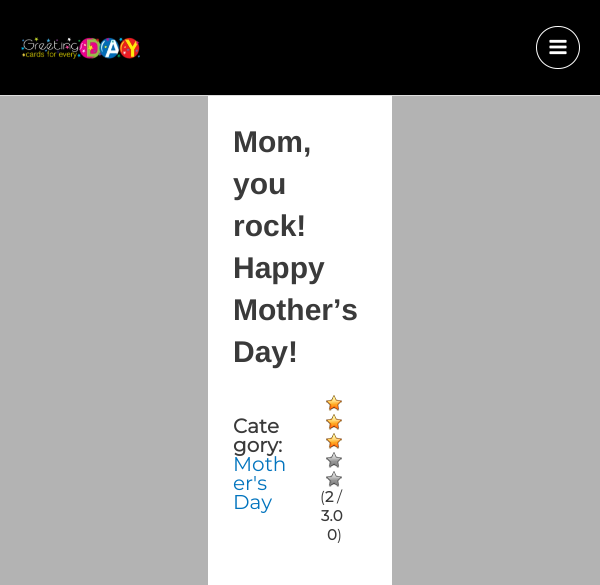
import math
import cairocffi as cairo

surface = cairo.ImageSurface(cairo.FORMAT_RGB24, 600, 585)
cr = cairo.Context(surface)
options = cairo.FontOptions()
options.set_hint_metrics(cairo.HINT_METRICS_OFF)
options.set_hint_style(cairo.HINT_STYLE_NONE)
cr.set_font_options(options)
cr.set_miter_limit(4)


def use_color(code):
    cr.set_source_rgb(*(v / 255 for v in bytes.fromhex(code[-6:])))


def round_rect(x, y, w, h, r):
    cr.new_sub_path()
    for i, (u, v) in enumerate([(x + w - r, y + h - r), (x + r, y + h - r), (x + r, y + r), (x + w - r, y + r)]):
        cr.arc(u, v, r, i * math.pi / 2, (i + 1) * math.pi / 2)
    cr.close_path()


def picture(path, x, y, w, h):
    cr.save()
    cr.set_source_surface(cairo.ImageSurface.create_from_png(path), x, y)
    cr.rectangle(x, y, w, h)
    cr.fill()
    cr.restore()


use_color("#b3b3b3")
cr.paint()
use_color("#000000")
cr.rectangle(0, 0, 600, 95)
cr.fill()
use_color("#dddddd")
cr.rectangle(0, 95, 600, 1)
cr.fill()
picture("img1.png", 21, 37, 119, 22)
round_rect(536.5, 26.5, 43, 42, 21)
use_color("#ffffff")
cr.set_line_width(1)
cr.stroke()
picture("img2.png", 549, 39, 18, 16)
cr.rectangle(208, 96, 184, 489)
cr.fill()
cr.select_font_face("Liberation Sans", cairo.FONT_SLANT_NORMAL, cairo.FONT_WEIGHT_BOLD)
cr.set_font_size(30)
use_color("#3a3a3a")
cr.move_to(233, 152)
cr.show_text("Mom,")
cr.move_to(233, 194)
cr.show_text("you")
cr.move_to(233, 236)
cr.show_text("rock!")
cr.move_to(233, 278)
cr.show_text("Happy")
cr.move_to(233, 320)
cr.show_text("Mother’s")
cr.move_to(233, 362)
cr.show_text("Day!")
cr.select_font_face("Montserrat", cairo.FONT_SLANT_NORMAL, cairo.FONT_WEIGHT_BOLD)
cr.set_font_size(20)
cr.move_to(233, 433)
cr.show_text("Cate")
cr.move_to(233, 452)
cr.show_text("gory:")
cr.select_font_face("Montserrat Thin")
use_color("#0274be")
cr.move_to(233, 471)
cr.show_text("Moth")
cr.move_to(233, 490)
cr.show_text("er's")
cr.move_to(233, 509)
cr.show_text("Day")
picture("img3.png", 326, 395, 16, 16)
picture("img3.png", 326, 414, 16, 16)
picture("img3.png", 326, 433, 16, 16)
picture("img4.png", 326, 452, 16, 16)
picture("img4.png", 326, 471, 16, 16)
cr.set_font_size(15)
use_color("#3a3a3a")
cr.move_to(320, 502)
cr.show_text("(")
cr.select_font_face("Montserrat", cairo.FONT_SLANT_NORMAL, cairo.FONT_WEIGHT_BOLD)
cr.move_to(325, 502)
cr.show_text("2")
cr.select_font_face("Montserrat Thin")
cr.move_to(337, 502)
cr.show_text("/")
cr.select_font_face("Montserrat", cairo.FONT_SLANT_NORMAL, cairo.FONT_WEIGHT_BOLD)
cr.move_to(321, 521)
cr.show_text("3.0")
cr.move_to(327, 540)
cr.show_text("0")
cr.select_font_face("Montserrat Thin")
cr.move_to(337, 540)
cr.show_text(")")
surface.write_to_png("result.png")
